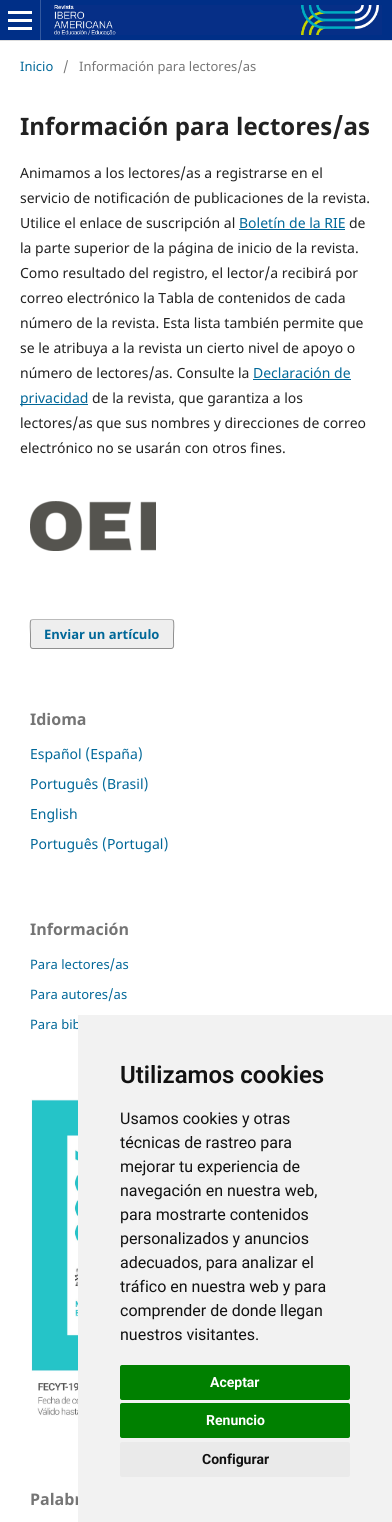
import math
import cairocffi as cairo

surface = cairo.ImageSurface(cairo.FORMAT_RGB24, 392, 1522)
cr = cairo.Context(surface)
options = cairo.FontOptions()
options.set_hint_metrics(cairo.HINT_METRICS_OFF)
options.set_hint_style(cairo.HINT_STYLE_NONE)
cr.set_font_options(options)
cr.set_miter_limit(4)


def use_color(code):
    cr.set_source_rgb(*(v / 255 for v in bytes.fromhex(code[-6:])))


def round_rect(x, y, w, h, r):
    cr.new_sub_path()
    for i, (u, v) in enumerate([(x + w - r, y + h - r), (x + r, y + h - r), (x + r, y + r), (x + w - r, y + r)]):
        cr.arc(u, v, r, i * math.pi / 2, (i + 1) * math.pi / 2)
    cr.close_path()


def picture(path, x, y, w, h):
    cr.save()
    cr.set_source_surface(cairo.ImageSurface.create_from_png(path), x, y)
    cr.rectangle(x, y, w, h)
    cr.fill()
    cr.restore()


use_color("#ffffff")
cr.paint()
use_color("#002f87")
cr.rectangle(0, 0, 392, 40)
cr.fill()
use_color("#dddddd")
cr.rectangle(0, 40, 392, 1)
cr.fill()
use_color("#33599f")
cr.rectangle(40, 0, 1, 40)
cr.fill()
use_color("#ffffff")
cr.rectangle(8, 27, 24, 3)
cr.fill()
cr.rectangle(8, 11, 24, 3)
cr.fill()
cr.rectangle(8, 19, 24, 3)
cr.fill()
picture("img1.png", 50, 5, 332, 30)
cr.select_font_face("Noto Sans")
cr.set_font_size(13)
use_color("#006798")
cr.move_to(20, 71)
cr.show_text("Inicio")
use_color("#757575")
cr.move_to(63, 71)
cr.show_text("/")
cr.move_to(79, 71)
cr.show_text("Información para lectores/as")
cr.select_font_face("Noto Sans", cairo.FONT_SLANT_NORMAL, cairo.FONT_WEIGHT_BOLD)
cr.set_font_size(24)
use_color("#212121")
cr.move_to(20, 135)
cr.show_text("Información para lectores/as")
cr.select_font_face("Noto Sans")
cr.set_font_size(14)
cr.move_to(20, 178)
cr.show_text("Animamos a los lectores/as a registrarse en el")
cr.move_to(20, 203)
cr.show_text("servicio de notificación de publicaciones de la revista.")
cr.move_to(20, 228)
cr.show_text("Utilice el enlace de suscripción al")
use_color("#006798")
cr.move_to(239, 228)
cr.show_text("Boletín de la RIE")
cr.rectangle(239, 229, 106, 1)
cr.fill()
use_color("#212121")
cr.move_to(349, 228)
cr.show_text("de")
cr.move_to(20, 253)
cr.show_text("la parte superior de la página de inicio de la revista.")
cr.move_to(20, 278)
cr.show_text("Como resultado del registro, el lector/a recibirá por")
cr.move_to(20, 303)
cr.show_text("correo electrónico la Tabla de contenidos de cada")
cr.move_to(20, 328)
cr.show_text("número de la revista. Esta lista también permite que")
cr.move_to(20, 353)
cr.show_text("se le atribuya a la revista un cierto nivel de apoyo o")
cr.move_to(20, 378)
cr.show_text("número de lectores/as. Consulte la")
use_color("#006798")
cr.move_to(253, 378)
cr.show_text("Declaración de")
cr.rectangle(253, 379, 98, 1)
cr.fill()
cr.rectangle(20, 404, 68, 1)
cr.fill()
cr.move_to(20, 403)
cr.show_text("privacidad")
use_color("#212121")
cr.move_to(92, 403)
cr.show_text("de la revista, que garantiza a los")
cr.move_to(20, 428)
cr.show_text("lectores/as que sus nombres y direcciones de correo")
cr.move_to(20, 453)
cr.show_text("electrónico no se usarán con otros fines.")
picture("img2.png", 30, 501, 126, 50)
use_color("#eeeeee")
round_rect(30, 619, 144, 30, 3)
cr.fill()
cr.new_path()
cr.move_to(31, 620)
cr.line_to(33, 619.5)
cr.line_to(171, 619.5)
cr.line_to(173, 620)
use_color("#bbbbbb")
cr.set_line_width(1)
cr.stroke()
cr.new_path()
cr.move_to(173, 620)
cr.curve_to(174.5, 622, 173.5, 631.5, 173.5, 634)
cr.line_to(173.5, 642)
cr.curve_to(173.5, 644, 174.5, 648.5, 171, 648.5)
cr.line_to(33, 648.5)
cr.curve_to(29.5, 648.5, 30.5, 644, 30.5, 642)
cr.line_to(30.5, 634)
cr.curve_to(30.5, 631.5, 29.5, 622, 31, 620)
cr.set_source_rgba(0, 0, 0, 0.4)
cr.stroke()
cr.select_font_face("Noto Sans", cairo.FONT_SLANT_NORMAL, cairo.FONT_WEIGHT_BOLD)
cr.set_font_size(13)
use_color("#006798")
cr.move_to(44, 639)
cr.show_text("Enviar un artículo")
cr.set_font_size(16)
use_color("#757575")
cr.move_to(30, 725)
cr.show_text("Idioma")
cr.select_font_face("Noto Sans")
cr.set_font_size(14)
use_color("#006798")
cr.move_to(30, 759)
cr.show_text("Español (España)")
cr.move_to(30, 789)
cr.show_text("Português (Brasil)")
cr.move_to(30, 819)
cr.show_text("English")
cr.move_to(30, 849)
cr.show_text("Português (Portugal)")
cr.select_font_face("Noto Sans", cairo.FONT_SLANT_NORMAL, cairo.FONT_WEIGHT_BOLD)
cr.set_font_size(16)
use_color("#757575")
cr.move_to(30, 935)
cr.show_text("Información")
cr.select_font_face("Noto Sans")
cr.set_font_size(13)
use_color("#006798")
cr.move_to(30, 969)
cr.show_text("Para lectores/as")
cr.move_to(30, 999)
cr.show_text("Para autores/as")
cr.move_to(30, 1029)
cr.show_text("Para bib")
picture("img3.png", 31, 1099, 47, 318)
cr.select_font_face("Noto Sans", cairo.FONT_SLANT_NORMAL, cairo.FONT_WEIGHT_BOLD)
cr.set_font_size(16)
use_color("#757575")
cr.move_to(30, 1505)
cr.show_text("Palabr")
use_color("#f2f2f2")
cr.rectangle(78, 1015, 314, 507)
cr.fill()
cr.select_font_face("Roboto SemiBold")
cr.set_font_size(24)
use_color("#111111")
cr.move_to(120, 1083)
cr.show_text("Utilizamos cookies")
cr.select_font_face("Roboto")
cr.set_font_size(16)
cr.move_to(120, 1124)
cr.show_text("Usamos cookies y otras")
cr.move_to(120, 1148)
cr.show_text("técnicas de rastreo para")
cr.move_to(120, 1172)
cr.show_text("mejorar tu experiencia de")
cr.move_to(120, 1196)
cr.show_text("navegación en nuestra web,")
cr.move_to(120, 1220)
cr.show_text("para mostrarte contenidos")
cr.move_to(120, 1244)
cr.show_text("personalizados y anuncios")
cr.move_to(120, 1268)
cr.show_text("adecuados, para analizar el")
cr.move_to(120, 1292)
cr.show_text("tráfico en nuestra web y para")
cr.move_to(120, 1316)
cr.show_text("comprender de donde llegan")
cr.move_to(120, 1340)
cr.show_text("nuestros visitantes.")
use_color("#008000")
round_rect(120, 1365, 230, 35, 2)
cr.fill()
cr.select_font_face("Roboto", cairo.FONT_SLANT_NORMAL, cairo.FONT_WEIGHT_BOLD)
cr.set_font_size(14)
use_color("#ffffff")
cr.move_to(210, 1387)
cr.show_text("Aceptar")
use_color("#008000")
round_rect(120, 1403, 230, 35, 2)
cr.fill()
use_color("#ffffff")
cr.move_to(206, 1425)
cr.show_text("Renuncio")
use_color("#eaeaea")
round_rect(120, 1442, 230, 35, 2)
cr.fill()
use_color("#111111")
cr.move_to(202, 1464)
cr.show_text("Configurar")
surface.write_to_png("result.png")
